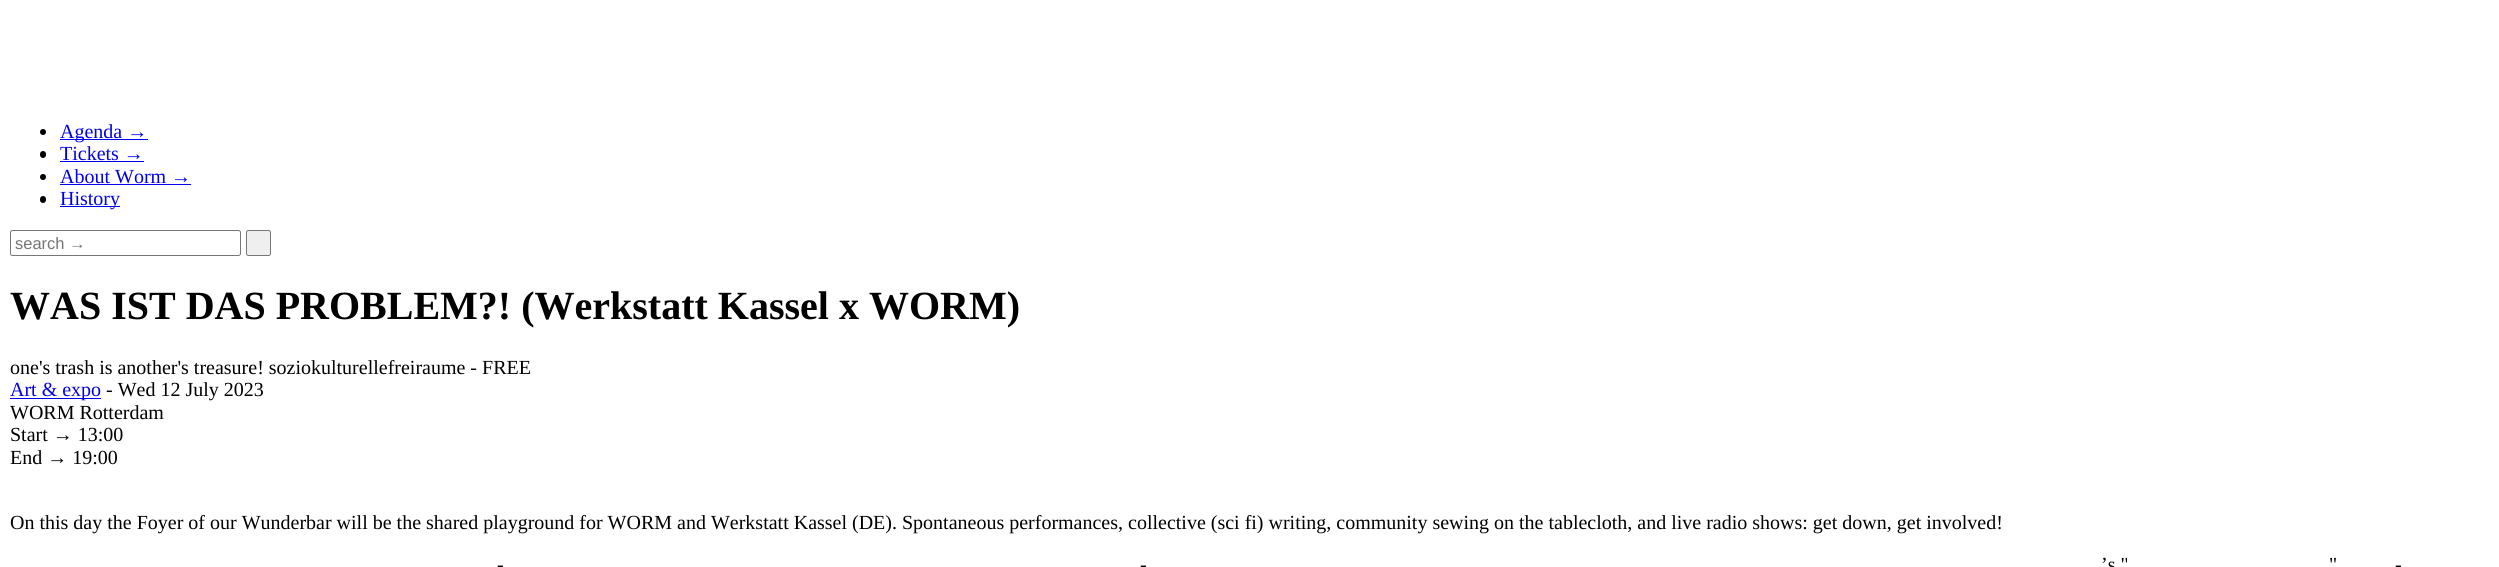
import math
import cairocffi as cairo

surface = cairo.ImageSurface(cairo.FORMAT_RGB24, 2499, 567)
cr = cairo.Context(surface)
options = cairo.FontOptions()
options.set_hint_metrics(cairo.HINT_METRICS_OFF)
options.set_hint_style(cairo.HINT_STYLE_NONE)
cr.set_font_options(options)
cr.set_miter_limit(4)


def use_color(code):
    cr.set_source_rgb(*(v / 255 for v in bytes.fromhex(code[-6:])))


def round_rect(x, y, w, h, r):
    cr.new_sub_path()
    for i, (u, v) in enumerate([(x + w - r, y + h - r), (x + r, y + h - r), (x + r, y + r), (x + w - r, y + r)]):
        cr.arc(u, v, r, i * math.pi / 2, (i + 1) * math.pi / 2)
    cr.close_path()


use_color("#ffffff")
cr.paint()
use_color("#000000")
cr.arc(43, 132, 3, 0, 2 * math.pi)
cr.fill()
use_color("#0000ee")
cr.rectangle(60, 139, 88, 1)
cr.fill()
cr.select_font_face("Liberation Serif")
cr.set_font_size(20)
cr.move_to(60, 138)
cr.show_text("Agenda →")
use_color("#000000")
round_rect(40, 151, 6, 7, 3)
cr.fill()
use_color("#0000ee")
cr.move_to(60, 160)
cr.show_text("Tickets →")
cr.rectangle(60, 161, 84, 1)
cr.fill()
use_color("#000000")
cr.arc(43, 177, 3, 0, 2 * math.pi)
cr.fill()
use_color("#0000ee")
cr.move_to(60, 183)
cr.show_text("About Worm →")
cr.rectangle(60, 184, 131, 1)
cr.fill()
use_color("#000000")
round_rect(40, 196, 6, 7, 3)
cr.fill()
use_color("#0000ee")
cr.rectangle(60, 206, 60, 1)
cr.fill()
cr.move_to(60, 205)
cr.show_text("History")
round_rect(10.5, 230.5, 230, 25, 2)
use_color("#767676")
cr.set_line_width(1)
cr.stroke()
cr.select_font_face("Liberation Sans")
cr.set_font_size(16.5)
use_color("#757575")
cr.move_to(15, 249)
cr.show_text("search →")
use_color("#efefef")
round_rect(246.5, 230.5, 24, 25, 2)
cr.fill_preserve()
use_color("#767676")
cr.stroke()
cr.select_font_face("Liberation Serif", cairo.FONT_SLANT_NORMAL, cairo.FONT_WEIGHT_BOLD)
cr.set_font_size(40)
use_color("#000000")
cr.move_to(10, 319)
cr.show_text("WAS IST DAS PROBLEM?! (Werkstatt Kassel x WORM)")
cr.select_font_face("Liberation Serif")
cr.set_font_size(20)
cr.move_to(10, 374)
cr.show_text("one's trash is another's treasure! soziokulturellefreiraume - FREE")
use_color("#0000ee")
cr.rectangle(10, 398, 91, 1)
cr.fill()
cr.move_to(10, 396)
cr.show_text("Art & expo")
use_color("#000000")
cr.move_to(106, 396)
cr.show_text("- Wed 12 July 2023")
cr.move_to(10, 419)
cr.show_text("WORM Rotterdam")
cr.move_to(10, 441)
cr.show_text("Start → 13:00")
cr.move_to(10, 464)
cr.show_text("End → 19:00")
cr.move_to(10, 529)
cr.show_text("On this day the Foyer of our Wunderbar will be the shared playground for WORM and Werkstatt Kassel (DE). Spontaneous performances, collective (sci fi) writing, community sewing on the tablecloth, and live radio shows: get down, get involved!")
cr.move_to(2101, 571)
cr.show_text("’s \"")
cr.move_to(2329, 571)
cr.show_text("\"")
cr.move_to(497, 571)
cr.show_text("-")
cr.move_to(1140, 571)
cr.show_text("-")
cr.move_to(2395, 571)
cr.show_text("-")
surface.write_to_png("result.png")
